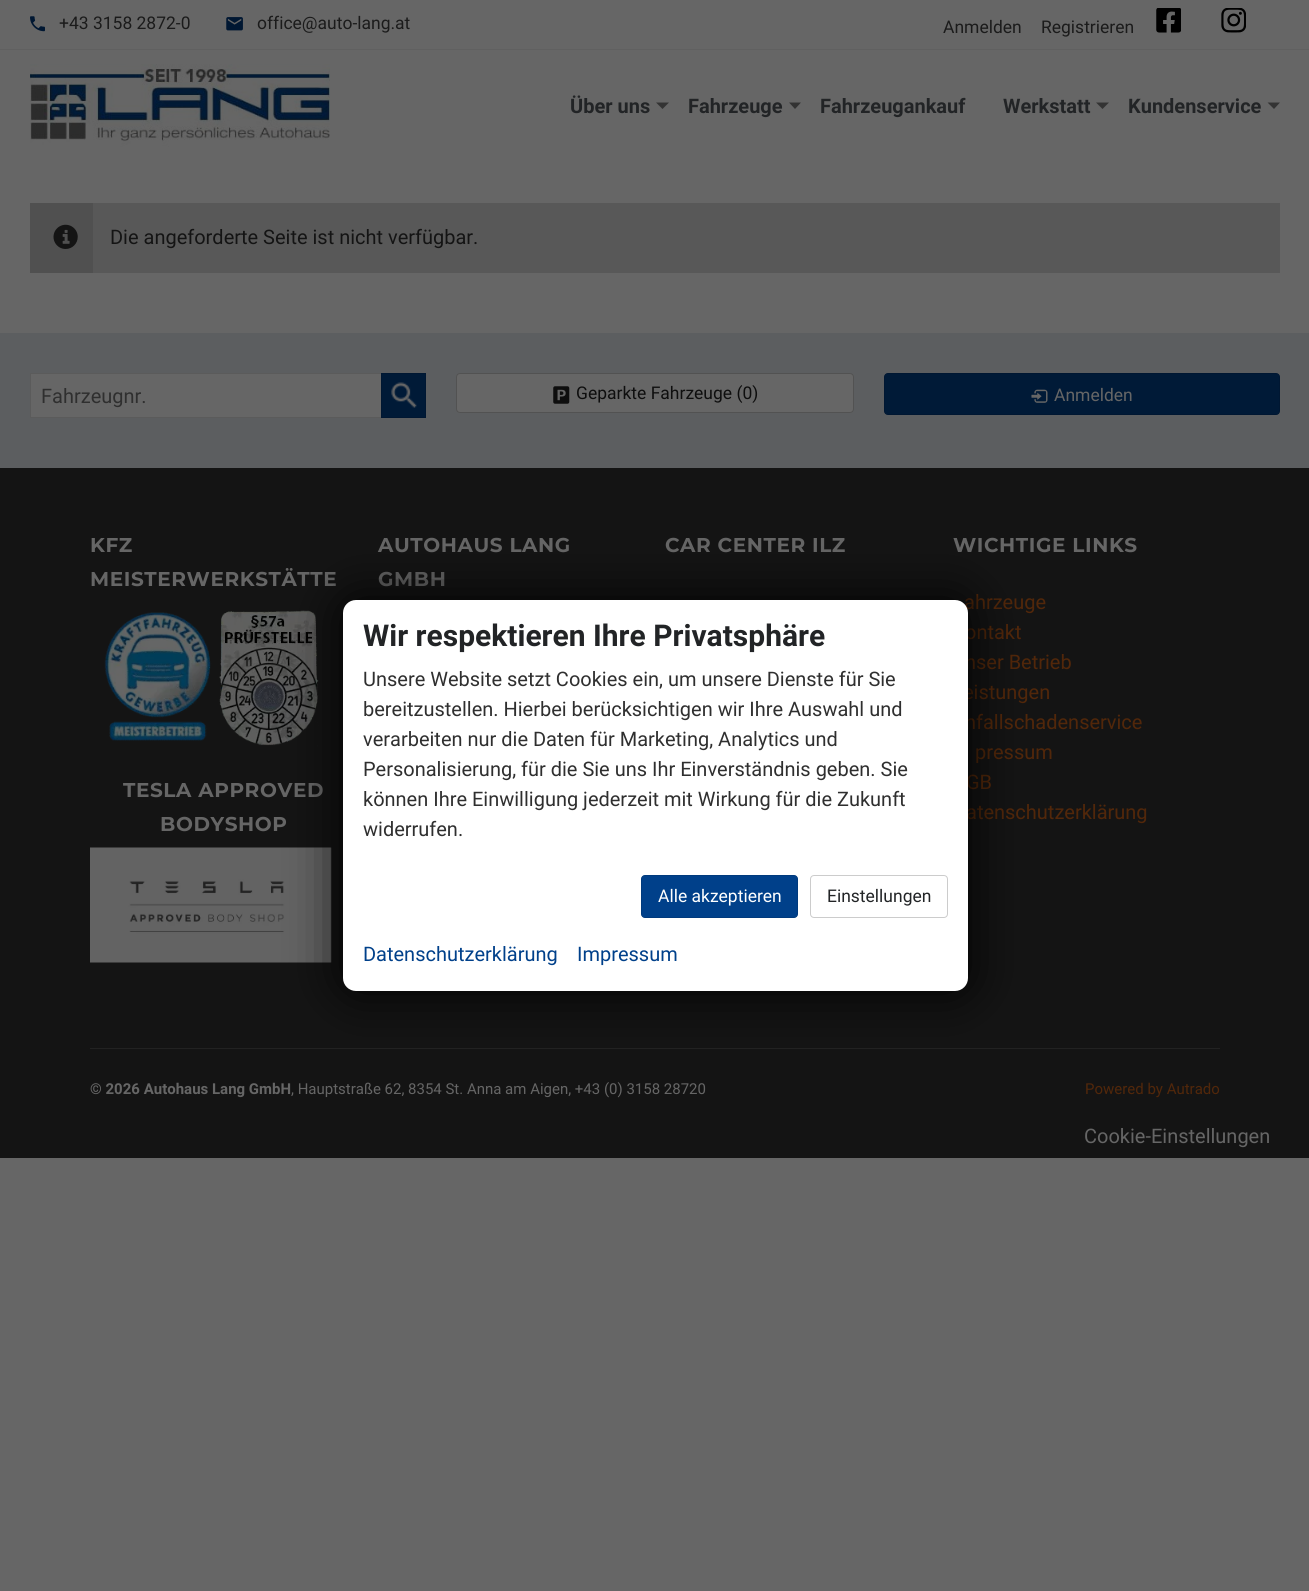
import math
import cairocffi as cairo

surface = cairo.ImageSurface(cairo.FORMAT_RGB24, 1309, 1591)
cr = cairo.Context(surface)
options = cairo.FontOptions()
options.set_hint_metrics(cairo.HINT_METRICS_OFF)
options.set_hint_style(cairo.HINT_STYLE_NONE)
cr.set_font_options(options)
cr.set_miter_limit(4)


def use_color(code):
    cr.set_source_rgb(*(v / 255 for v in bytes.fromhex(code[-6:])))


def spaced_text(x, y, s, letter, word):
    cr.move_to(x, y)
    for ch in s:
        cr.show_text(ch)
        cr.rel_move_to(letter + word * (ch == ' '), 0)


def round_rect(x, y, w, h, r):
    cr.new_sub_path()
    for i, (u, v) in enumerate([(x + w - r, y + h - r), (x + r, y + h - r), (x + r, y + r), (x + w - r, y + r)]):
        cr.arc(u, v, r, i * math.pi / 2, (i + 1) * math.pi / 2)
    cr.close_path()


def shadow(x, y, w, h, r, blur, alpha):
    cr.push_group_with_content(cairo.CONTENT_ALPHA)
    cr.set_operator(cairo.OPERATOR_SOURCE)
    for i in range(15, -16, -2):
        e = blur * i / 6
        if min(w, h) + 2 * e > 0:
            cr.set_source_rgba(0, 0, 0, alpha * math.erfc((i - 1) / 8.5) / 2)
            round_rect(x - e, y - e, w + 2 * e, h + 2 * e, max(0, min(r + e + blur * .6, min(w, h) / 2 + e)))
            cr.fill()
    cr.mask(cr.pop_group())


def picture(path, x, y, w, h):
    cr.save()
    cr.set_source_surface(cairo.ImageSurface.create_from_png(path), x, y)
    cr.rectangle(x, y, w, h)
    cr.fill()
    cr.restore()


use_color("#666666")
cr.paint()
picture("img1.png", 30, 16, 15, 16)
cr.select_font_face("Roboto")
cr.set_font_size(17.5)
use_color("#1b1b1b")
cr.move_to(59, 29)
cr.show_text("+43 3158 2872-0")
picture("img2.png", 226, 17, 17, 14)
cr.move_to(257, 29)
cr.show_text("office@auto-lang.at")
cr.move_to(943, 33)
cr.show_text("Anmelden")
cr.move_to(1041, 33)
cr.show_text("Registrieren")
picture("img3.png", 1156, 8, 25, 25)
picture("img4.png", 1221, 8, 25, 25)
use_color("#606060")
cr.rectangle(0, 49, 1309, 1)
cr.fill()
picture("img5.png", 30, 64, 300, 83)
cr.select_font_face("Roboto", cairo.FONT_SLANT_NORMAL, cairo.FONT_WEIGHT_BOLD)
cr.set_font_size(20)
use_color("#222426")
cr.move_to(570, 113)
cr.show_text("Über uns")
use_color("#333333")
cr.new_path()
cr.move_to(656, 102.5)
cr.line_to(669, 102.5)
cr.line_to(662.5, 109)
cr.close_path()
cr.fill()
use_color("#222426")
cr.move_to(688, 113)
cr.show_text("Fahrzeuge")
use_color("#333333")
cr.new_path()
cr.move_to(789, 102.5)
cr.line_to(801, 102.5)
cr.line_to(795, 109)
cr.close_path()
cr.fill()
use_color("#222426")
cr.move_to(820, 113)
cr.show_text("Fahrzeugankauf")
cr.move_to(1003, 113)
cr.show_text("Werkstatt")
use_color("#333333")
cr.new_path()
cr.move_to(1096, 102.5)
cr.line_to(1109, 102.5)
cr.line_to(1102.5, 109)
cr.close_path()
cr.fill()
use_color("#222426")
cr.move_to(1128, 113)
cr.show_text("Kundenservice")
use_color("#333333")
cr.new_path()
cr.move_to(1267.5, 102.5)
cr.line_to(1280, 102.5)
cr.line_to(1274, 109)
cr.close_path()
cr.fill()
use_color("#585858")
cr.rectangle(93, 203, 1187, 70)
cr.fill()
use_color("#505050")
cr.rectangle(30, 203, 63, 70)
cr.fill()
picture("img6.png", 53, 224, 25, 25)
cr.select_font_face("Roboto")
use_color("#141414")
cr.move_to(110, 244)
cr.show_text("Die angeforderte Seite ist nicht verfügbar.")
use_color("#5c5e60")
cr.rectangle(0, 333, 1309, 135)
cr.fill()
use_color("#666666")
cr.rectangle(31, 374, 350, 43)
cr.fill()
cr.rectangle(30.5, 373.5, 395, 44)
use_color("#5b5b5b")
cr.set_line_width(1)
cr.stroke()
use_color("#2f2f2f")
cr.move_to(41, 403)
cr.show_text("Fahrzeugnr.")
use_color("#001a37")
cr.rectangle(382, 374, 43, 43)
cr.fill()
picture("img7.png", 391, 382, 26, 26)
cr.rectangle(381.5, 373.5, 44, 44)
use_color("#001732")
cr.stroke()
use_color("#666666")
round_rect(456.5, 373.5, 397, 39, 3.5)
cr.fill_preserve()
use_color("#525252")
cr.stroke()
picture("img8.png", 553, 386, 17, 18)
cr.set_font_size(17.5)
use_color("#0e0e0e")
cr.move_to(576, 399)
cr.show_text("Geparkte Fahrzeuge (0)")
use_color("#001a37")
round_rect(884.5, 373.5, 395, 41, 3.5)
cr.fill_preserve()
use_color("#001732")
cr.stroke()
picture("img9.png", 1031, 389, 17, 14)
use_color("#666666")
cr.move_to(1054, 401)
cr.show_text("Anmelden")
use_color("#141414")
cr.rectangle(0, 468, 1309, 690)
cr.fill()
use_color("#222222")
cr.rectangle(90, 1048, 1130, 1)
cr.fill()
cr.select_font_face("Montserrat", cairo.FONT_SLANT_NORMAL, cairo.FONT_WEIGHT_BOLD)
cr.set_font_size(20)
use_color("#666666")
spaced_text(90, 552, "KFZ", 0.6, 0)
spaced_text(90, 586, "MEISTERWERKSTÄTTE", 0.6, 0)
picture("img10.png", 104, 610, 215, 137)
spaced_text(123, 797, "TESLA APPROVED", 0.6, 0)
spaced_text(160, 831, "BODYSHOP", 0.6, 0)
picture("img11.png", 90, 847, 242, 116)
spaced_text(378, 552, "AUTOHAUS LANG", 0.6, 0)
spaced_text(378, 586, "GMBH", 0.6, 0)
spaced_text(665, 552, "CAR CENTER ILZ", 0.6, 0)
spaced_text(953, 552, "WICHTIGE LINKS", 0.6, 0)
cr.select_font_face("Roboto")
use_color("#52270a")
cr.move_to(964, 609)
cr.show_text("ahrzeuge")
cr.move_to(965, 639)
cr.show_text("ontakt")
cr.move_to(965, 669)
cr.show_text("nser Betrieb")
cr.move_to(963, 699)
cr.show_text("eistungen")
cr.move_to(965, 729)
cr.show_text("nfallschadenservice")
cr.move_to(975, 759)
cr.show_text("pressum")
cr.move_to(966, 789)
cr.show_text("GB")
cr.move_to(966, 819)
cr.show_text("atenschutzerklärung")
cr.select_font_face("Roboto", cairo.FONT_SLANT_NORMAL, cairo.FONT_WEIGHT_BOLD)
cr.set_font_size(15)
use_color("#666666")
cr.move_to(90, 1094)
cr.show_text("© 2026 Autohaus Lang GmbH")
cr.select_font_face("Roboto")
cr.move_to(291, 1094)
cr.show_text(", Hauptstraße 62, 8354 St. Anna am Aigen, +43 (0) 3158 28720")
use_color("#52270a")
cr.move_to(1085, 1094)
cr.show_text("Powered by Autrado")
use_color("#000000")
shadow(343, 600, 625, 391, 13, 25, 1)
use_color("#ffffff")
round_rect(343, 600, 625, 391, 13)
cr.fill()
cr.select_font_face("Roboto", cairo.FONT_SLANT_NORMAL, cairo.FONT_WEIGHT_BOLD)
cr.set_font_size(30)
use_color("#222426")
cr.move_to(363, 646)
cr.show_text("Wir respektieren Ihre Privatsphäre")
cr.select_font_face("Roboto")
cr.set_font_size(20)
use_color("#2f2f2f")
cr.move_to(363, 686)
cr.show_text("Unsere Website setzt Cookies ein, um unsere Dienste für Sie")
cr.move_to(363, 716)
cr.show_text("bereitzustellen. Hierbei berücksichtigen wir Ihre Auswahl und")
cr.move_to(363, 746)
cr.show_text("verarbeiten nur die Daten für Marketing, Analytics und")
cr.move_to(363, 776)
cr.show_text("Personalisierung, für die Sie uns Ihr Einverständnis geben. Sie")
cr.move_to(363, 806)
cr.show_text("können Ihre Einwilligung jederzeit mit Wirkung für die Zukunft")
cr.move_to(363, 836)
cr.show_text("widerrufen.")
use_color("#00408a")
round_rect(641.5, 875.5, 156, 42, 3.5)
cr.fill_preserve()
use_color("#003a7d")
cr.stroke()
cr.set_font_size(17.5)
use_color("#ffffff")
cr.move_to(658, 902)
cr.show_text("Alle akzeptieren")
round_rect(810.5, 875.5, 137, 42, 3.5)
use_color("#cccccc")
cr.stroke()
use_color("#222426")
cr.move_to(827, 902)
cr.show_text("Einstellungen")
cr.set_font_size(20)
use_color("#00408a")
cr.move_to(363, 961)
cr.show_text("Datenschutzerklärung")
cr.move_to(577, 961)
cr.show_text("Impressum")
use_color("#666666")
cr.move_to(1084, 1143)
cr.show_text("Cookie-Einstellungen")
surface.write_to_png("result.png")
